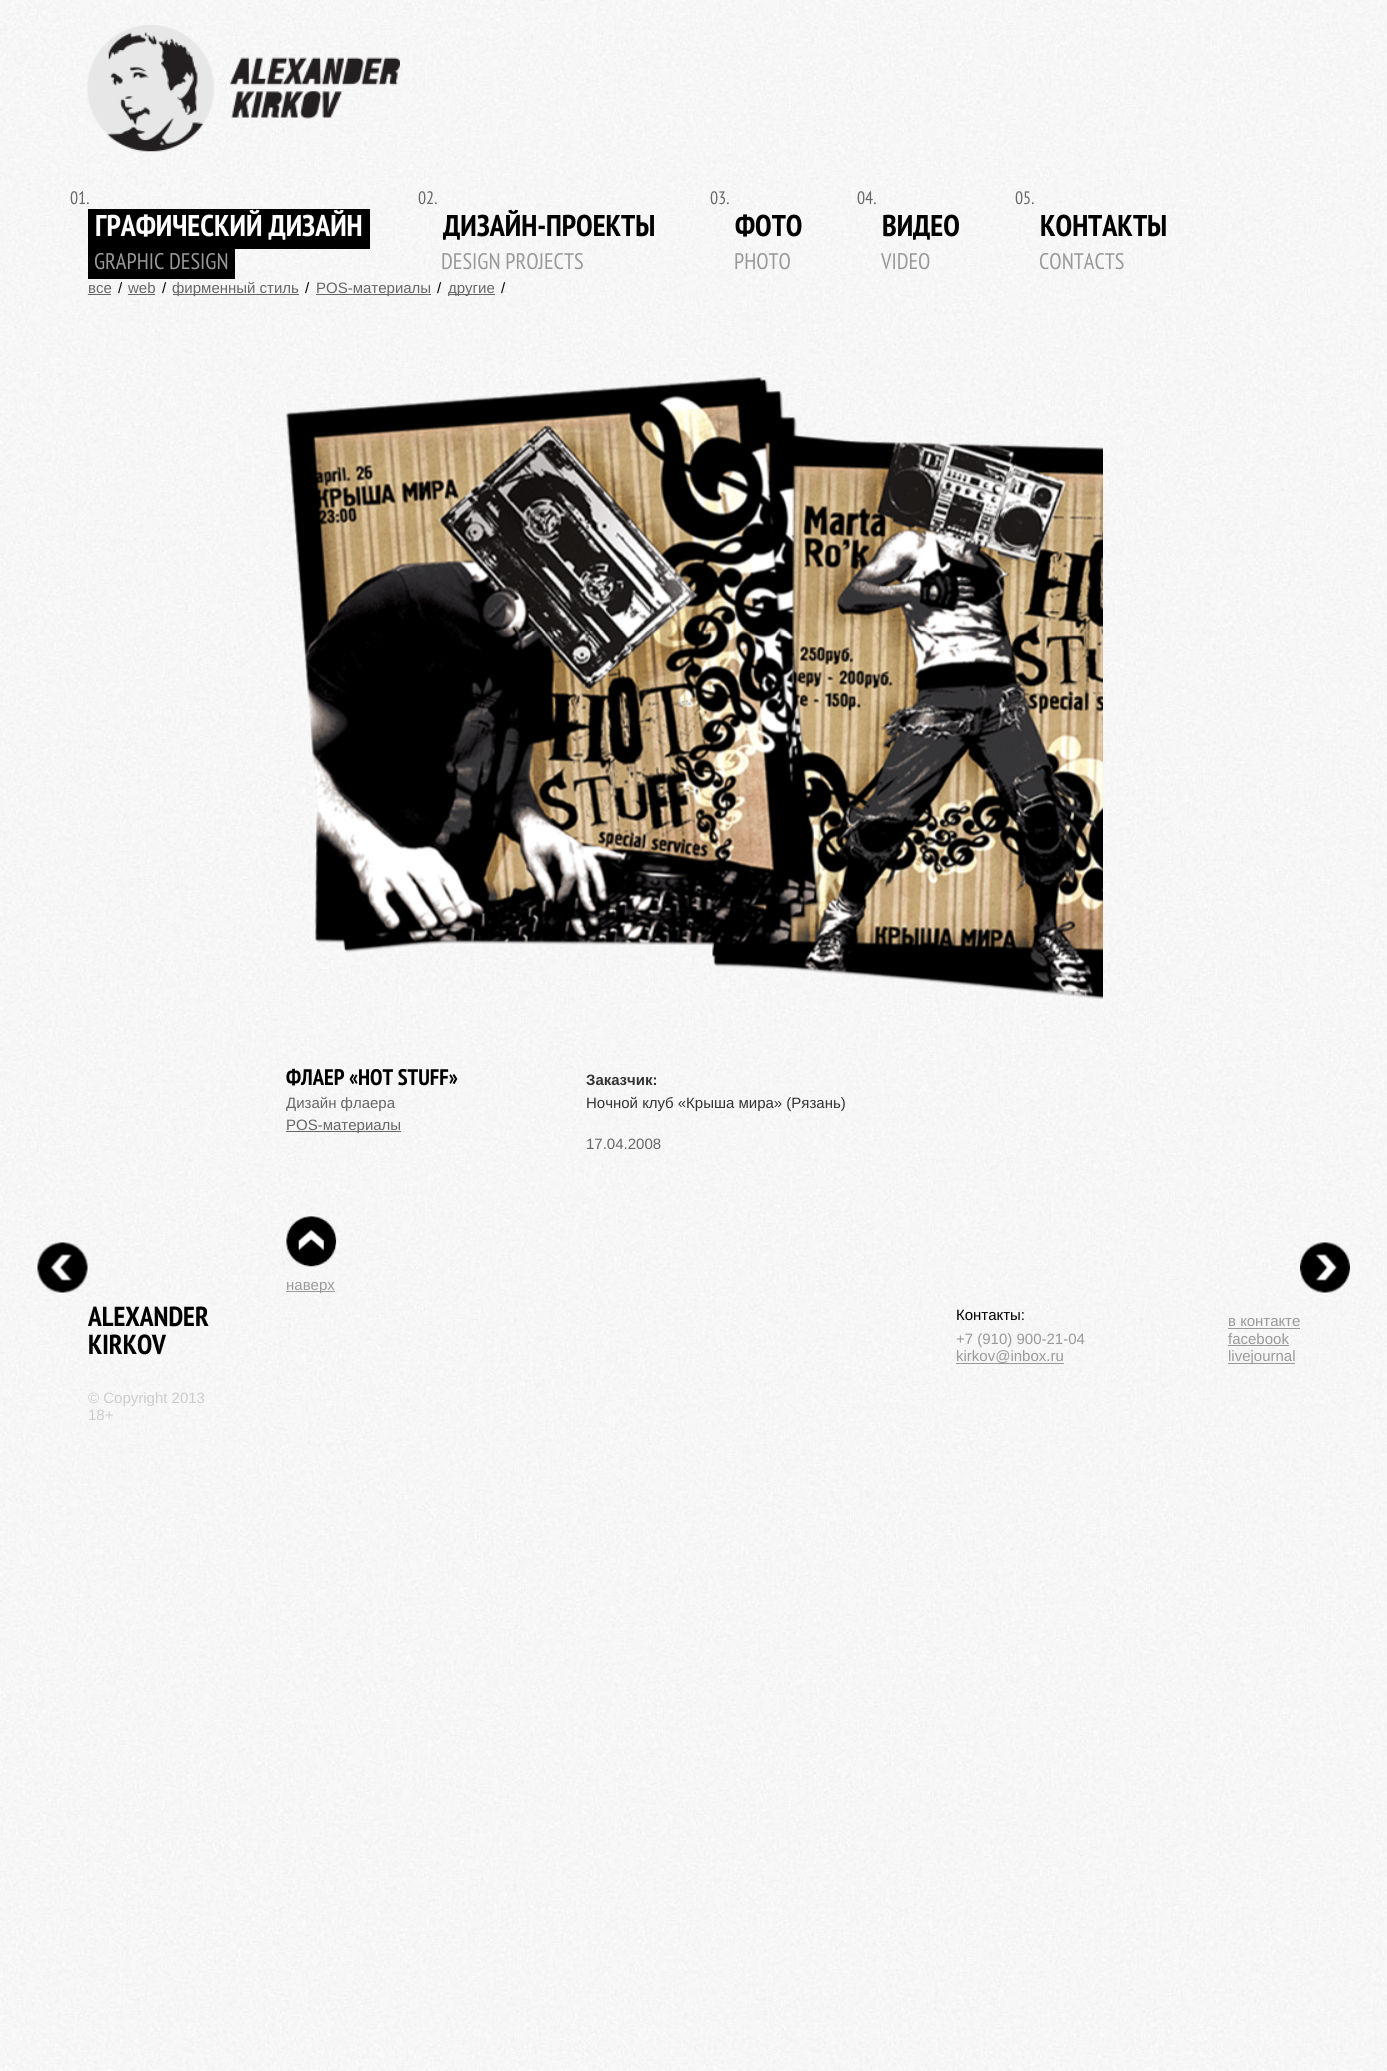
import math
import cairocffi as cairo

surface = cairo.ImageSurface(cairo.FORMAT_RGB24, 1387, 2071)
cr = cairo.Context(surface)
options = cairo.FontOptions()
options.set_hint_metrics(cairo.HINT_METRICS_OFF)
options.set_hint_style(cairo.HINT_STYLE_NONE)
cr.set_font_options(options)
cr.set_miter_limit(4)


def use_color(code):
    cr.set_source_rgb(*(v / 255 for v in bytes.fromhex(code[-6:])))


def picture(path, x, y, w, h):
    cr.save()
    cr.set_source_surface(cairo.ImageSurface.create_from_png(path), x, y)
    cr.rectangle(x, y, w, h)
    cr.fill()
    cr.restore()


use_color("#ffffff")
cr.paint()
picture("img1.png", 0, 0, 1387, 2071)
picture("img2.png", 87, 25, 313, 127)
cr.select_font_face("PT Sans Narrow")
cr.set_font_size(18)
use_color("#666666")
cr.move_to(70, 204)
cr.show_text("01.")
use_color("#000000")
cr.rectangle(88, 209, 282, 40)
cr.fill()
cr.select_font_face("PT Sans Narrow", cairo.FONT_SLANT_NORMAL, cairo.FONT_WEIGHT_BOLD)
cr.set_font_size(30)
use_color("#ffffff")
cr.move_to(95, 236)
cr.show_text("ГРАФИЧЕСКИЙ ДИЗАЙН")
use_color("#000000")
cr.rectangle(88, 249, 147, 30)
cr.fill()
cr.select_font_face("PT Sans Narrow")
cr.set_font_size(22.5)
use_color("#999999")
cr.move_to(94, 269)
cr.show_text("GRAPHIC DESIGN")
cr.select_font_face("Liberation Sans")
cr.set_font_size(15)
use_color("#666666")
cr.move_to(88, 293)
cr.show_text("все")
cr.rectangle(88, 294, 23, 1)
cr.fill()
use_color("#000000")
cr.move_to(118, 293)
cr.show_text("/")
use_color("#666666")
cr.move_to(128, 293)
cr.show_text("web")
cr.rectangle(128, 294, 27, 1)
cr.fill()
use_color("#000000")
cr.move_to(162, 293)
cr.show_text("/")
use_color("#666666")
cr.rectangle(173, 294, 126, 1)
cr.fill()
cr.move_to(172, 293)
cr.show_text("фирменный стиль")
use_color("#000000")
cr.move_to(305, 293)
cr.show_text("/")
use_color("#666666")
cr.rectangle(316, 294, 115, 1)
cr.fill()
cr.move_to(316, 293)
cr.show_text("POS-материалы")
use_color("#000000")
cr.move_to(437, 293)
cr.show_text("/")
use_color("#666666")
cr.rectangle(448, 294, 47, 1)
cr.fill()
cr.save()
cr.rectangle(88, 279, 600, 17)
cr.clip()
cr.move_to(448, 293)
cr.show_text("другие")
cr.restore()
use_color("#000000")
cr.move_to(501, 293)
cr.show_text("/")
cr.select_font_face("PT Sans Narrow")
cr.set_font_size(18)
use_color("#666666")
cr.move_to(418, 204)
cr.show_text("02.")
cr.select_font_face("PT Sans Narrow", cairo.FONT_SLANT_NORMAL, cairo.FONT_WEIGHT_BOLD)
cr.set_font_size(30)
use_color("#000000")
cr.move_to(443, 236)
cr.show_text("ДИЗАЙН-ПРОЕКТЫ")
cr.select_font_face("PT Sans Narrow")
cr.set_font_size(22.5)
use_color("#999999")
cr.move_to(441, 269)
cr.show_text("DESIGN PROJECTS")
cr.set_font_size(18)
use_color("#666666")
cr.move_to(710, 204)
cr.show_text("03.")
cr.select_font_face("PT Sans Narrow", cairo.FONT_SLANT_NORMAL, cairo.FONT_WEIGHT_BOLD)
cr.set_font_size(30)
use_color("#000000")
cr.move_to(735, 236)
cr.show_text("ФОТО")
cr.select_font_face("PT Sans Narrow")
cr.set_font_size(22.5)
use_color("#999999")
cr.move_to(734, 269)
cr.show_text("PHOTO")
cr.set_font_size(18)
use_color("#666666")
cr.move_to(857, 204)
cr.show_text("04.")
cr.select_font_face("PT Sans Narrow", cairo.FONT_SLANT_NORMAL, cairo.FONT_WEIGHT_BOLD)
cr.set_font_size(30)
use_color("#000000")
cr.move_to(882, 236)
cr.show_text("ВИДЕО")
cr.select_font_face("PT Sans Narrow")
cr.set_font_size(22.5)
use_color("#999999")
cr.move_to(881, 269)
cr.show_text("VIDEO")
cr.set_font_size(18)
use_color("#666666")
cr.move_to(1015, 204)
cr.show_text("05.")
cr.select_font_face("PT Sans Narrow", cairo.FONT_SLANT_NORMAL, cairo.FONT_WEIGHT_BOLD)
cr.set_font_size(30)
use_color("#000000")
cr.move_to(1040, 236)
cr.show_text("КОНТАКТЫ")
cr.select_font_face("PT Sans Narrow")
cr.set_font_size(22.5)
use_color("#999999")
cr.move_to(1039, 269)
cr.show_text("CONTACTS")
picture("img3.png", 286, 377, 817, 623)
cr.select_font_face("PT Sans Narrow", cairo.FONT_SLANT_NORMAL, cairo.FONT_WEIGHT_BOLD)
use_color("#000000")
cr.move_to(286, 1085)
cr.show_text("ФЛАЕР «HOT STUFF»")
cr.save()
cr.rectangle(286, 1013, 817, 168)
cr.clip()
cr.select_font_face("Liberation Sans")
cr.set_font_size(15)
use_color("#666666")
cr.move_to(286, 1108)
cr.show_text("Дизайн флаера")
cr.restore()
use_color("#666666")
cr.rectangle(286, 1131, 115, 1)
cr.fill()
cr.select_font_face("Liberation Sans")
cr.set_font_size(15)
cr.move_to(286, 1130)
cr.show_text("POS-материалы")
cr.select_font_face("Liberation Sans", cairo.FONT_SLANT_NORMAL, cairo.FONT_WEIGHT_BOLD)
use_color("#333333")
cr.move_to(586, 1085)
cr.show_text("Заказчик:")
cr.select_font_face("Liberation Sans")
cr.move_to(586, 1108)
cr.show_text("Ночной клуб «Крыша мира» (Рязань)")
use_color("#666666")
cr.move_to(586, 1149)
cr.show_text("17.04.2008")
picture("img4.png", 37, 1242, 51, 51)
picture("img5.png", 286, 1216, 51, 51)
use_color("#999999")
cr.rectangle(286, 1291, 49, 1)
cr.fill()
cr.move_to(286, 1290)
cr.show_text("наверх")
picture("img6.png", 1300, 1242, 50, 51)
cr.select_font_face("PT Sans Narrow", cairo.FONT_SLANT_NORMAL, cairo.FONT_WEIGHT_BOLD)
cr.set_font_size(27.5)
use_color("#000000")
cr.move_to(88, 1326)
cr.show_text("ALEXANDER")
cr.move_to(88, 1354)
cr.show_text("KIRKOV")
cr.save()
cr.rectangle(88, 1294, 1212, 205)
cr.clip()
cr.select_font_face("Liberation Sans")
cr.set_font_size(15)
use_color("#cccccc")
cr.move_to(88, 1403)
cr.show_text("© Copyright 2013")
cr.restore()
cr.select_font_face("Liberation Sans")
cr.set_font_size(15)
use_color("#cccccc")
cr.move_to(88, 1420)
cr.show_text("18+")
use_color("#000000")
cr.move_to(956, 1320)
cr.show_text("Контакты:")
use_color("#999999")
cr.move_to(956, 1344)
cr.show_text("+7 (910) 900-21-04")
cr.rectangle(956, 1363, 108, 1)
cr.fill()
cr.move_to(956, 1361)
cr.show_text("kirkov@inbox.ru")
cr.move_to(1228, 1326)
cr.show_text("в контакте")
cr.rectangle(1228, 1328, 72, 1)
cr.fill()
cr.move_to(1228, 1344)
cr.show_text("facebook")
cr.rectangle(1228, 1345, 61, 1)
cr.fill()
cr.rectangle(1228, 1363, 67, 1)
cr.fill()
cr.move_to(1228, 1361)
cr.show_text("livejournal")
surface.write_to_png("result.png")
